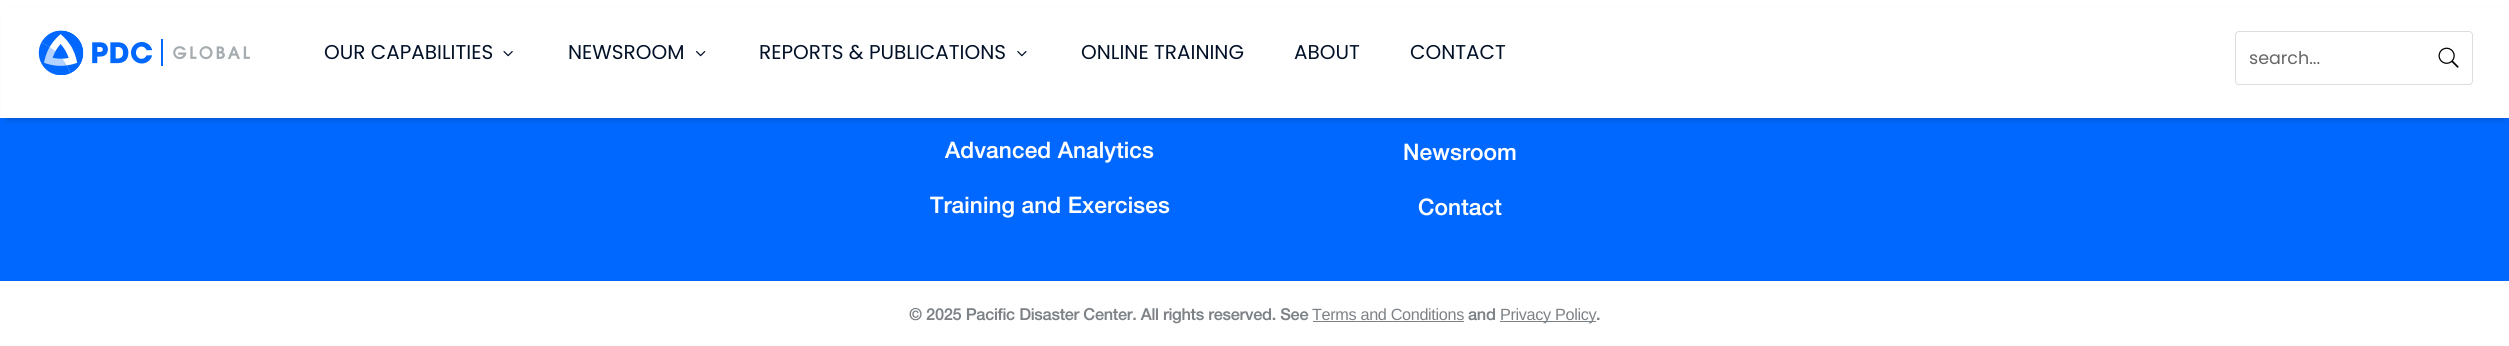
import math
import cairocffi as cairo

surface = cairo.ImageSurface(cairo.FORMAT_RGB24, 2509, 346)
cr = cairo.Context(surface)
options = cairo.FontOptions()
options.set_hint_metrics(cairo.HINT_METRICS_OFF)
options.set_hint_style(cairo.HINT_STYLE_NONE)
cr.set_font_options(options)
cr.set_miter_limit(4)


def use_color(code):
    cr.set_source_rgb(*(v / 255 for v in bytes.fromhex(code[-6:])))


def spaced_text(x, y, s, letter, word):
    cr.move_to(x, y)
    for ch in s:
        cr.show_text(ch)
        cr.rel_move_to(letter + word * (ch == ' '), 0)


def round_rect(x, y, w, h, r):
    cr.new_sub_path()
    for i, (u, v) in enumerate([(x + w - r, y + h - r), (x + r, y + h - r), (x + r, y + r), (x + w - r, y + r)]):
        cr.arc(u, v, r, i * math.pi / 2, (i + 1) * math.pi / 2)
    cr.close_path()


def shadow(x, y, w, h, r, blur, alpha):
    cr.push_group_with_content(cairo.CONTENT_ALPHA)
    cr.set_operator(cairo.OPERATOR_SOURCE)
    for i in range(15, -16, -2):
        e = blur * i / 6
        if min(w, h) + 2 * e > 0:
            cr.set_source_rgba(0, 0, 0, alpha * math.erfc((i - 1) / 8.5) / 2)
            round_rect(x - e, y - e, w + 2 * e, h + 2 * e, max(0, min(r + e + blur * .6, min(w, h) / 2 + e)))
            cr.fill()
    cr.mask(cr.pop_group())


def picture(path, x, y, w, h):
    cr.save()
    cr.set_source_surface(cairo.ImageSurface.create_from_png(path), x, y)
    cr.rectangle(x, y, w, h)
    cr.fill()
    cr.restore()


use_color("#ffffff")
cr.paint()
use_color("#0068ff")
cr.rectangle(0, 118, 2509, 163)
cr.fill()
use_color("#000000")
shadow(8, 15, 2495, 103, 0, 4, 0.3)
use_color("#ffffff")
cr.rectangle(1, 8, 2508, 110)
cr.fill()
picture("img1.png", 38, 30, 212, 45)
cr.select_font_face("Poppins")
cr.set_font_size(20)
use_color("#021128")
cr.move_to(324, 59)
cr.show_text("OUR CAPABILITIES")
picture("img2.png", 503, 51, 10, 6)
cr.move_to(568, 59)
cr.show_text("NEWSROOM")
picture("img3.png", 696, 51, 10, 6)
cr.move_to(759, 59)
cr.show_text("REPORTS & PUBLICATIONS")
picture("img4.png", 1017, 51, 10, 6)
cr.move_to(1081, 59)
cr.show_text("ONLINE TRAINING")
cr.move_to(1294, 59)
cr.show_text("ABOUT")
cr.move_to(1410, 59)
cr.show_text("CONTACT")
round_rect(2235.5, 31.5, 237, 53, 3.5)
use_color("#dddddd")
cr.set_line_width(1)
cr.stroke()
cr.set_font_size(17.5)
use_color("#666666")
cr.move_to(2249, 64)
cr.show_text("search...")
picture("img5.png", 2438, 47, 21, 21)
cr.select_font_face("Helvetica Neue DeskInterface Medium")
cr.set_font_size(22.5)
use_color("#ffffff")
cr.move_to(945, 158)
cr.show_text("Advanced Analytics")
cr.move_to(930, 213)
cr.show_text("Training and Exercises")
cr.move_to(1403, 160)
cr.show_text("Newsroom")
cr.move_to(1418, 215)
cr.show_text("Contact")
cr.set_font_size(16.25)
use_color("#7d8287")
spaced_text(909, 320, "© 2025 Pacific Disaster Center. All rights reserved. See", -0.35, 0)
cr.select_font_face("Liberation Sans")
spaced_text(1312, 320, "Terms and Conditions", -0.35, 0)
cr.rectangle(1313, 321, 151, 1)
cr.fill()
cr.select_font_face("Helvetica Neue DeskInterface Medium")
spaced_text(1468, 320, "and", -0.35, 0)
cr.rectangle(1500, 321, 96, 1)
cr.fill()
cr.select_font_face("Liberation Sans")
spaced_text(1500, 320, "Privacy Policy", -0.35, 0)
cr.select_font_face("Helvetica Neue DeskInterface Medium")
spaced_text(1596, 320, ".", -0.35, 0)
surface.write_to_png("result.png")
